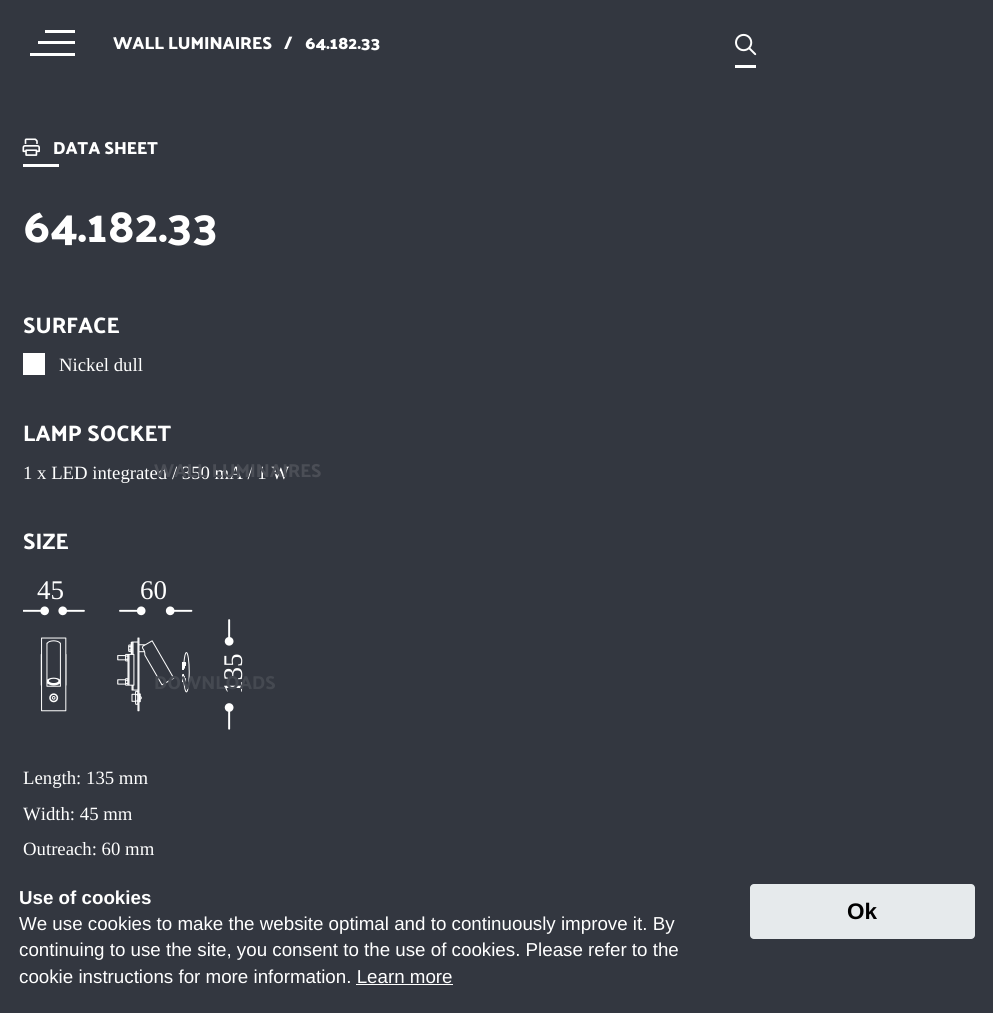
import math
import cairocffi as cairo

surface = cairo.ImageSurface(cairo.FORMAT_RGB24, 993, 1013)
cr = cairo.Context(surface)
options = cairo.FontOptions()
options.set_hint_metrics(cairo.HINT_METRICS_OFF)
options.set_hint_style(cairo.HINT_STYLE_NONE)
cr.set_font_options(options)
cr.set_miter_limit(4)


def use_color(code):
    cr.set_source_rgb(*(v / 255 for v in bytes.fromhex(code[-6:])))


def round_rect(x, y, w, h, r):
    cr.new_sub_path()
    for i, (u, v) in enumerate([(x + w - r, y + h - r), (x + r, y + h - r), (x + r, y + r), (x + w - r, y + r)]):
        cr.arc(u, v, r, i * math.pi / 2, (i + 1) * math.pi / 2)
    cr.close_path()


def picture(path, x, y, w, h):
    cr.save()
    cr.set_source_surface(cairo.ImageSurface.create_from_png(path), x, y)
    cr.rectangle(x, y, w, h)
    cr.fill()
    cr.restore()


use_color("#333740")
cr.paint()
use_color("#ffffff")
cr.rectangle(45, 30, 30, 3)
cr.fill()
cr.rectangle(38, 41, 37, 3)
cr.fill()
cr.rectangle(30, 53, 45, 3)
cr.fill()
cr.select_font_face("Palanquin Dark SemiBold")
cr.set_font_size(17.5)
cr.move_to(113, 49)
cr.show_text("WALL LUMINAIRES")
cr.move_to(284, 49)
cr.show_text("/")
cr.move_to(305, 49)
cr.show_text("64.182.33")
cr.rectangle(735, 65, 21, 3)
cr.fill()
picture("img1.png", 735, 33, 22, 23)
picture("img2.png", 22, 138, 18, 18)
cr.move_to(53, 154)
cr.show_text("DATA SHEET")
cr.rectangle(23, 164, 36, 3)
cr.fill()
cr.select_font_face("Palanquin Dark Medium")
cr.set_font_size(46.5)
cr.move_to(23, 242)
cr.show_text("64.182.33")
cr.set_font_size(22.5)
cr.move_to(23, 333)
cr.show_text("SURFACE")
cr.rectangle(23, 353, 22, 22)
cr.fill()
cr.select_font_face("Liberation Serif")
cr.set_font_size(18.75)
cr.move_to(59, 371)
cr.show_text("Nickel dull")
cr.select_font_face("Palanquin Dark Medium")
cr.set_font_size(22.5)
cr.move_to(23, 441)
cr.show_text("LAMP SOCKET")
cr.select_font_face("Liberation Serif")
cr.set_font_size(18.75)
cr.move_to(23, 479)
cr.show_text("1 x LED integrated / 350 mA / 1 W")
cr.select_font_face("Palanquin Dark Medium")
cr.set_font_size(22.5)
cr.move_to(23, 549)
cr.show_text("SIZE")
cr.select_font_face("Liberation Serif")
cr.set_font_size(27)
cr.move_to(37, 599)
cr.show_text("45")
cr.move_to(140, 599)
cr.show_text("60")
picture("img3.png", 23, 606, 211, 124)
cr.save()
cr.translate(242, 694)
cr.rotate(-90 * math.pi / 180)
cr.move_to(0, 0)
cr.show_text("135")
cr.restore()
cr.set_font_size(18.75)
cr.move_to(23, 784)
cr.show_text("Length: 135 mm")
cr.move_to(23, 820)
cr.show_text("Width: 45 mm")
cr.move_to(23, 855)
cr.show_text("Outreach: 60 mm")
cr.select_font_face("Palanquin Dark Medium")
use_color("#4b4e56")
cr.move_to(154, 477)
cr.show_text("WALL LUMINAIRES")
use_color("#454951")
cr.move_to(154, 689)
cr.show_text("DOWNLOADS")
cr.select_font_face("Liberation Sans", cairo.FONT_SLANT_NORMAL, cairo.FONT_WEIGHT_BOLD)
use_color("#ffffff")
cr.move_to(19, 904)
cr.show_text("Use of cookies")
cr.select_font_face("Liberation Sans")
cr.move_to(19, 930)
cr.show_text("We use cookies to make the website optimal and to continuously improve it. By")
cr.move_to(19, 956)
cr.show_text("continuing to use the site, you consent to the use of cookies. Please refer to the")
cr.move_to(19, 983)
cr.show_text("cookie instructions for more information. Learn more")
cr.rectangle(356, 984, 97, 1)
cr.fill()
use_color("#e6eaec")
round_rect(750, 884, 225, 55, 4)
cr.fill()
cr.select_font_face("Liberation Sans", cairo.FONT_SLANT_NORMAL, cairo.FONT_WEIGHT_BOLD)
cr.set_font_size(22.5)
use_color("#000000")
cr.move_to(847, 919)
cr.show_text("Ok")
surface.write_to_png("result.png")
